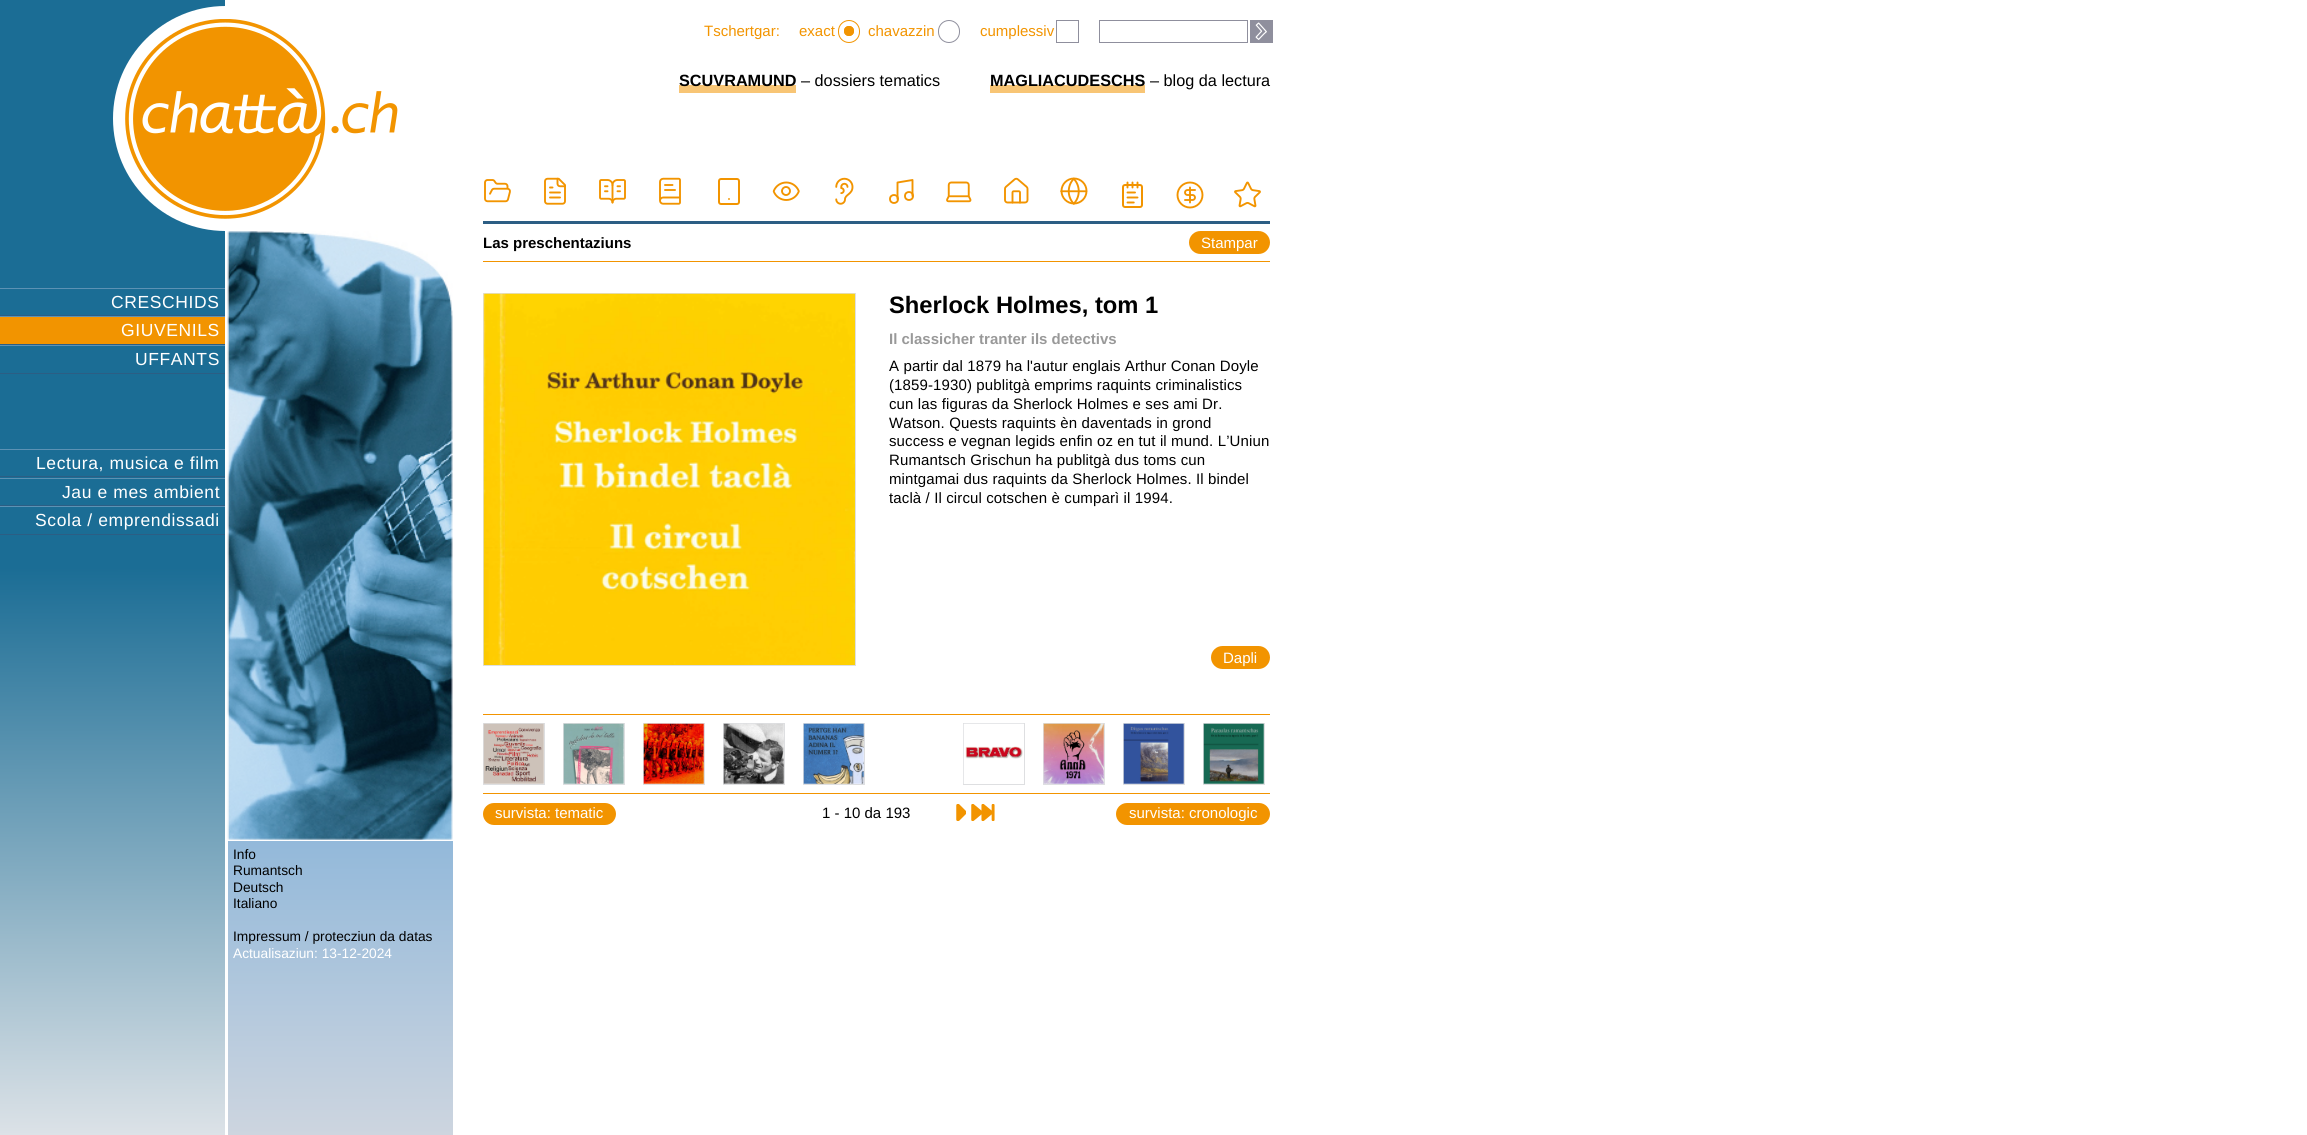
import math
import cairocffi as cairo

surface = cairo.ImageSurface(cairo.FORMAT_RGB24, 2307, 1135)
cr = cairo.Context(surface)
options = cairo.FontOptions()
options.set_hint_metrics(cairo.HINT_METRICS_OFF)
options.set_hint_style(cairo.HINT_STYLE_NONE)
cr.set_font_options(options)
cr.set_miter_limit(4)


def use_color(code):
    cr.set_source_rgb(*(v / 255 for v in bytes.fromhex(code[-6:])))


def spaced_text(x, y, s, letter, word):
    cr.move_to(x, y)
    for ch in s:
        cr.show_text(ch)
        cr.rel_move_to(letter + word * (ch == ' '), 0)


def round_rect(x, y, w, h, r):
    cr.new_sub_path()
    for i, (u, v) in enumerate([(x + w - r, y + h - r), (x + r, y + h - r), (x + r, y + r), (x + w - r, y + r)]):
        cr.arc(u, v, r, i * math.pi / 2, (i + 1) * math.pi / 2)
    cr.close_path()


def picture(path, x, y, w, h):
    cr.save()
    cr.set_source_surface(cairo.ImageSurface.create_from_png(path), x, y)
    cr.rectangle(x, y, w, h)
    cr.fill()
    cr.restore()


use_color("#ffffff")
cr.paint()
gradient = cairo.LinearGradient(112, 0, 113, 1135)
gradient.add_color_stop_rgba(0, 0.106, 0.427, 0.584, 1)
gradient.add_color_stop_rgba(0.5, 0.106, 0.427, 0.584, 1)
gradient.add_color_stop_rgba(1, 0.863, 0.886, 0.906, 1)
cr.set_source(gradient)
cr.rectangle(0, 0, 225, 1135)
cr.fill()
use_color("#ffffff")
cr.arc(225.5, 118.5, 112.5, 0, 2 * math.pi)
cr.fill()
picture("img1.png", 125, 19, 273, 200)
use_color("#5c92b4")
cr.rectangle(0, 288, 225, 1)
cr.fill()
use_color("#2c5e84")
cr.rectangle(0, 315, 225, 1)
cr.fill()
cr.select_font_face("Liberation Sans")
cr.set_font_size(17.5)
use_color("#ffffff")
spaced_text(111, 308, "CRESCHIDS", 0.6, 0)
use_color("#f29400")
cr.rectangle(0, 317, 225, 27)
cr.fill()
use_color("#5c92b4")
cr.rectangle(0, 316, 225, 1)
cr.fill()
use_color("#2c5e84")
cr.rectangle(0, 344, 225, 1)
cr.fill()
use_color("#ffffff")
spaced_text(121, 336, "GIUVENILS", 0.6, 0)
use_color("#5c92b4")
cr.rectangle(0, 345, 225, 1)
cr.fill()
use_color("#2c5e84")
cr.rectangle(0, 373, 225, 1)
cr.fill()
use_color("#ffffff")
spaced_text(135, 365, "UFFANTS", 0.6, 0)
use_color("#5c92b4")
cr.rectangle(0, 449, 225, 1)
cr.fill()
use_color("#2c5e84")
cr.rectangle(0, 476, 225, 1)
cr.fill()
use_color("#ffffff")
spaced_text(36, 469, "Lectura, musica e film", 0.6, 0)
use_color("#5c92b4")
cr.rectangle(0, 478, 225, 1)
cr.fill()
use_color("#2c5e84")
cr.rectangle(0, 505, 225, 1)
cr.fill()
use_color("#ffffff")
spaced_text(62, 498, "Jau e mes ambient", 0.6, 0)
use_color("#5c92b4")
cr.rectangle(0, 506, 225, 1)
cr.fill()
use_color("#2c5e84")
cr.rectangle(0, 534, 225, 1)
cr.fill()
use_color("#ffffff")
spaced_text(35, 526, "Scola / emprendissadi", 0.6, 0)
cr.set_font_size(15)
use_color("#f29400")
cr.move_to(704, 36)
cr.show_text("Tschertgar:")
cr.move_to(799, 36)
cr.show_text("exact")
cr.new_path()
cr.arc(849, 31, 5, 0, 2 * math.pi)
cr.fill()
gradient = cairo.RadialGradient(849, 31, 0, 849, 31, 14)
gradient.add_color_stop_rgba(0, 0.949, 0.58, 0, 1)
gradient.add_color_stop_rgba(0.5, 0.949, 0.58, 0, 1)
gradient.add_color_stop_rgba(0.6, 0.949, 0.58, 0, 0)
gradient.add_color_stop_rgba(1, 0, 0, 0, 0)
cr.set_source(gradient)
cr.arc(849, 31, 5, 0, 2 * math.pi)
cr.fill()
round_rect(838.5, 20.5, 21, 22, 10.5)
use_color("#f29400")
cr.set_line_width(1)
cr.stroke()
cr.move_to(868, 36)
cr.show_text("chavazzin")
round_rect(938.5, 20.5, 21, 22, 10.5)
use_color("#8f8f9d")
cr.stroke()
use_color("#f29400")
cr.move_to(980, 36)
cr.show_text("cumplessiv")
cr.rectangle(1056.5, 20.5, 22, 22)
use_color("#8f8f9d")
cr.stroke()
cr.rectangle(1099.5, 20.5, 148, 22)
cr.stroke()
cr.rectangle(1250, 20, 23, 23)
cr.fill()
picture("img2.png", 1255, 22, 12, 18)
use_color("#f8c575")
cr.rectangle(679, 85, 117, 8)
cr.fill()
cr.select_font_face("Liberation Sans", cairo.FONT_SLANT_NORMAL, cairo.FONT_WEIGHT_BOLD)
cr.set_font_size(16.25)
use_color("#000000")
cr.move_to(679, 86)
cr.show_text("SCUVRAMUND")
cr.select_font_face("Liberation Sans")
cr.move_to(801, 86)
cr.show_text("– dossiers tematics")
use_color("#f8c575")
cr.rectangle(990, 85, 155, 8)
cr.fill()
cr.select_font_face("Liberation Sans", cairo.FONT_SLANT_NORMAL, cairo.FONT_WEIGHT_BOLD)
use_color("#000000")
cr.move_to(990, 86)
cr.show_text("MAGLIACUDESCHS")
cr.select_font_face("Liberation Sans")
cr.move_to(1150, 86)
cr.show_text("– blog da lectura")
use_color("#2c5e84")
cr.rectangle(483, 221, 787, 3)
cr.fill()
picture("img3.png", 484, 179, 27, 24)
picture("img4.png", 544, 177, 22, 28)
picture("img5.png", 599, 179, 27, 25)
picture("img6.png", 659, 177, 22, 28)
round_rect(719, 179, 20, 25, 2)
use_color("#f29400")
cr.set_line_width(2)
cr.stroke()
cr.new_path()
cr.move_to(729, 199)
cr.line_to(729, 199)
cr.set_line_width(1.9)
cr.set_line_cap(cairo.LINE_CAP_ROUND)
cr.set_line_join(cairo.LINE_JOIN_ROUND)
cr.stroke()
picture("img7.png", 772, 181, 28, 20)
picture("img8.png", 835, 177, 19, 28)
cr.new_path()
cr.move_to(897.5, 199)
cr.line_to(897.5, 182.5)
cr.line_to(912.5, 180)
cr.line_to(912.5, 196)
cr.stroke()
cr.arc(894, 199, 4, 0, 2 * math.pi)
cr.set_line_cap(cairo.LINE_CAP_BUTT)
cr.set_line_join(cairo.LINE_JOIN_MITER)
cr.stroke()
cr.arc(909, 196, 4, 0, 2 * math.pi)
cr.stroke()
picture("img9.png", 946, 181, 26, 22)
picture("img10.png", 1004, 177, 25, 27)
picture("img11.png", 1060, 177, 28, 28)
picture("img12.png", 1122, 181, 21, 27)
picture("img13.png", 1176, 181, 28, 28)
picture("img14.png", 1234, 181, 27, 27)
cr.select_font_face("Liberation Sans", cairo.FONT_SLANT_NORMAL, cairo.FONT_WEIGHT_BOLD)
cr.set_font_size(15)
use_color("#000000")
cr.move_to(483, 248)
cr.show_text("Las preschentaziuns")
use_color("#f29400")
round_rect(1189, 231, 81, 23, 11.5)
cr.fill()
cr.select_font_face("Liberation Sans")
use_color("#ffffff")
cr.move_to(1201, 248)
cr.show_text("Stampar")
use_color("#f29400")
cr.rectangle(483, 261, 787, 1)
cr.fill()
cr.rectangle(483.5, 293.5, 372, 372)
use_color("#dedfe1")
cr.set_line_width(1)
cr.stroke()
picture("img15.png", 483, 293, 372, 372)
cr.select_font_face("Liberation Sans", cairo.FONT_SLANT_NORMAL, cairo.FONT_WEIGHT_BOLD)
cr.set_font_size(23.75)
use_color("#000000")
cr.move_to(889, 313)
cr.show_text("Sherlock Holmes, tom 1")
cr.set_font_size(15)
use_color("#999999")
cr.move_to(889, 344)
cr.show_text("Il classicher tranter ils detectivs")
cr.select_font_face("Liberation Sans")
use_color("#000000")
spaced_text(889, 371, "A partir dal 1879 ha l'autur englais Arthur Conan Doyle", 0.12, 0)
spaced_text(889, 390, "(1859-1930) publitgà emprims raquints criminalistics", 0.12, 0)
spaced_text(889, 409, "cun las figuras da Sherlock Holmes e ses ami Dr.", 0.12, 0)
spaced_text(889, 428, "Watson. Quests raquints èn daventads in grond", 0.12, 0)
spaced_text(889, 446, "success e vegnan legids enfin oz en tut il mund. L’Uniun", 0.12, 0)
spaced_text(889, 465, "Rumantsch Grischun ha publitgà dus toms cun", 0.12, 0)
spaced_text(889, 484, "mintgamai dus raquints da Sherlock Holmes. Il bindel", 0.12, 0)
spaced_text(889, 503, "taclà / Il circul cotschen è cumparì il 1994.", 0.12, 0)
use_color("#f29400")
round_rect(1211, 646, 59, 23, 11.5)
cr.fill()
use_color("#ffffff")
cr.move_to(1223, 663)
cr.show_text("Dapli")
use_color("#f29400")
cr.rectangle(483, 714, 787, 1)
cr.fill()
cr.rectangle(483.5, 723.5, 61, 61)
use_color("#dedfe1")
cr.stroke()
picture("img16.png", 483, 723, 61, 61)
cr.rectangle(563.5, 723.5, 61, 61)
cr.stroke()
picture("img17.png", 563, 723, 61, 61)
cr.rectangle(643.5, 723.5, 61, 61)
cr.stroke()
picture("img18.png", 643, 723, 61, 61)
cr.rectangle(723.5, 723.5, 61, 61)
cr.stroke()
picture("img19.png", 723, 723, 61, 61)
cr.rectangle(803.5, 723.5, 61, 61)
cr.stroke()
picture("img20.png", 803, 723, 61, 61)
cr.rectangle(963.5, 723.5, 61, 61)
cr.stroke()
picture("img21.png", 963, 723, 61, 61)
cr.rectangle(1043.5, 723.5, 61, 61)
cr.stroke()
picture("img22.png", 1043, 723, 61, 61)
cr.rectangle(1123.5, 723.5, 61, 61)
cr.stroke()
picture("img23.png", 1123, 723, 61, 61)
cr.rectangle(1203.5, 723.5, 61, 61)
cr.stroke()
picture("img24.png", 1203, 723, 61, 61)
use_color("#f29400")
cr.rectangle(483, 793, 787, 1)
cr.fill()
round_rect(483, 803, 133, 22, 11)
cr.fill()
use_color("#ffffff")
cr.move_to(495, 818)
cr.show_text("survista: tematic")
use_color("#000000")
cr.move_to(822, 818)
cr.show_text("1 - 10 da 193")
picture("img25.png", 956, 804, 10, 17)
picture("img26.png", 971, 804, 24, 17)
use_color("#f29400")
round_rect(1116, 803, 154, 22, 11)
cr.fill()
use_color("#ffffff")
cr.move_to(1129, 818)
cr.show_text("survista: cronologic")
picture("img27.png", 227, 231, 226, 609)
gradient = cairo.LinearGradient(340, 841, 340, 1135)
gradient.add_color_stop_rgba(0, 0.576, 0.725, 0.855, 1)
gradient.add_color_stop_rgba(1, 0.804, 0.835, 0.875, 1)
cr.set_source(gradient)
cr.rectangle(228, 841, 225, 294)
cr.fill()
cr.set_font_size(13.75)
use_color("#000000")
cr.move_to(233, 859)
cr.show_text("Info")
cr.move_to(233, 875)
cr.show_text("Rumantsch")
cr.move_to(233, 892)
cr.show_text("Deutsch")
cr.move_to(233, 908)
cr.show_text("Italiano")
cr.move_to(233, 941)
cr.show_text("Impressum / protecziun da datas")
use_color("#ffffff")
cr.move_to(233, 958)
cr.show_text("Actualisaziun: 13-12-2024")
surface.write_to_png("result.png")
